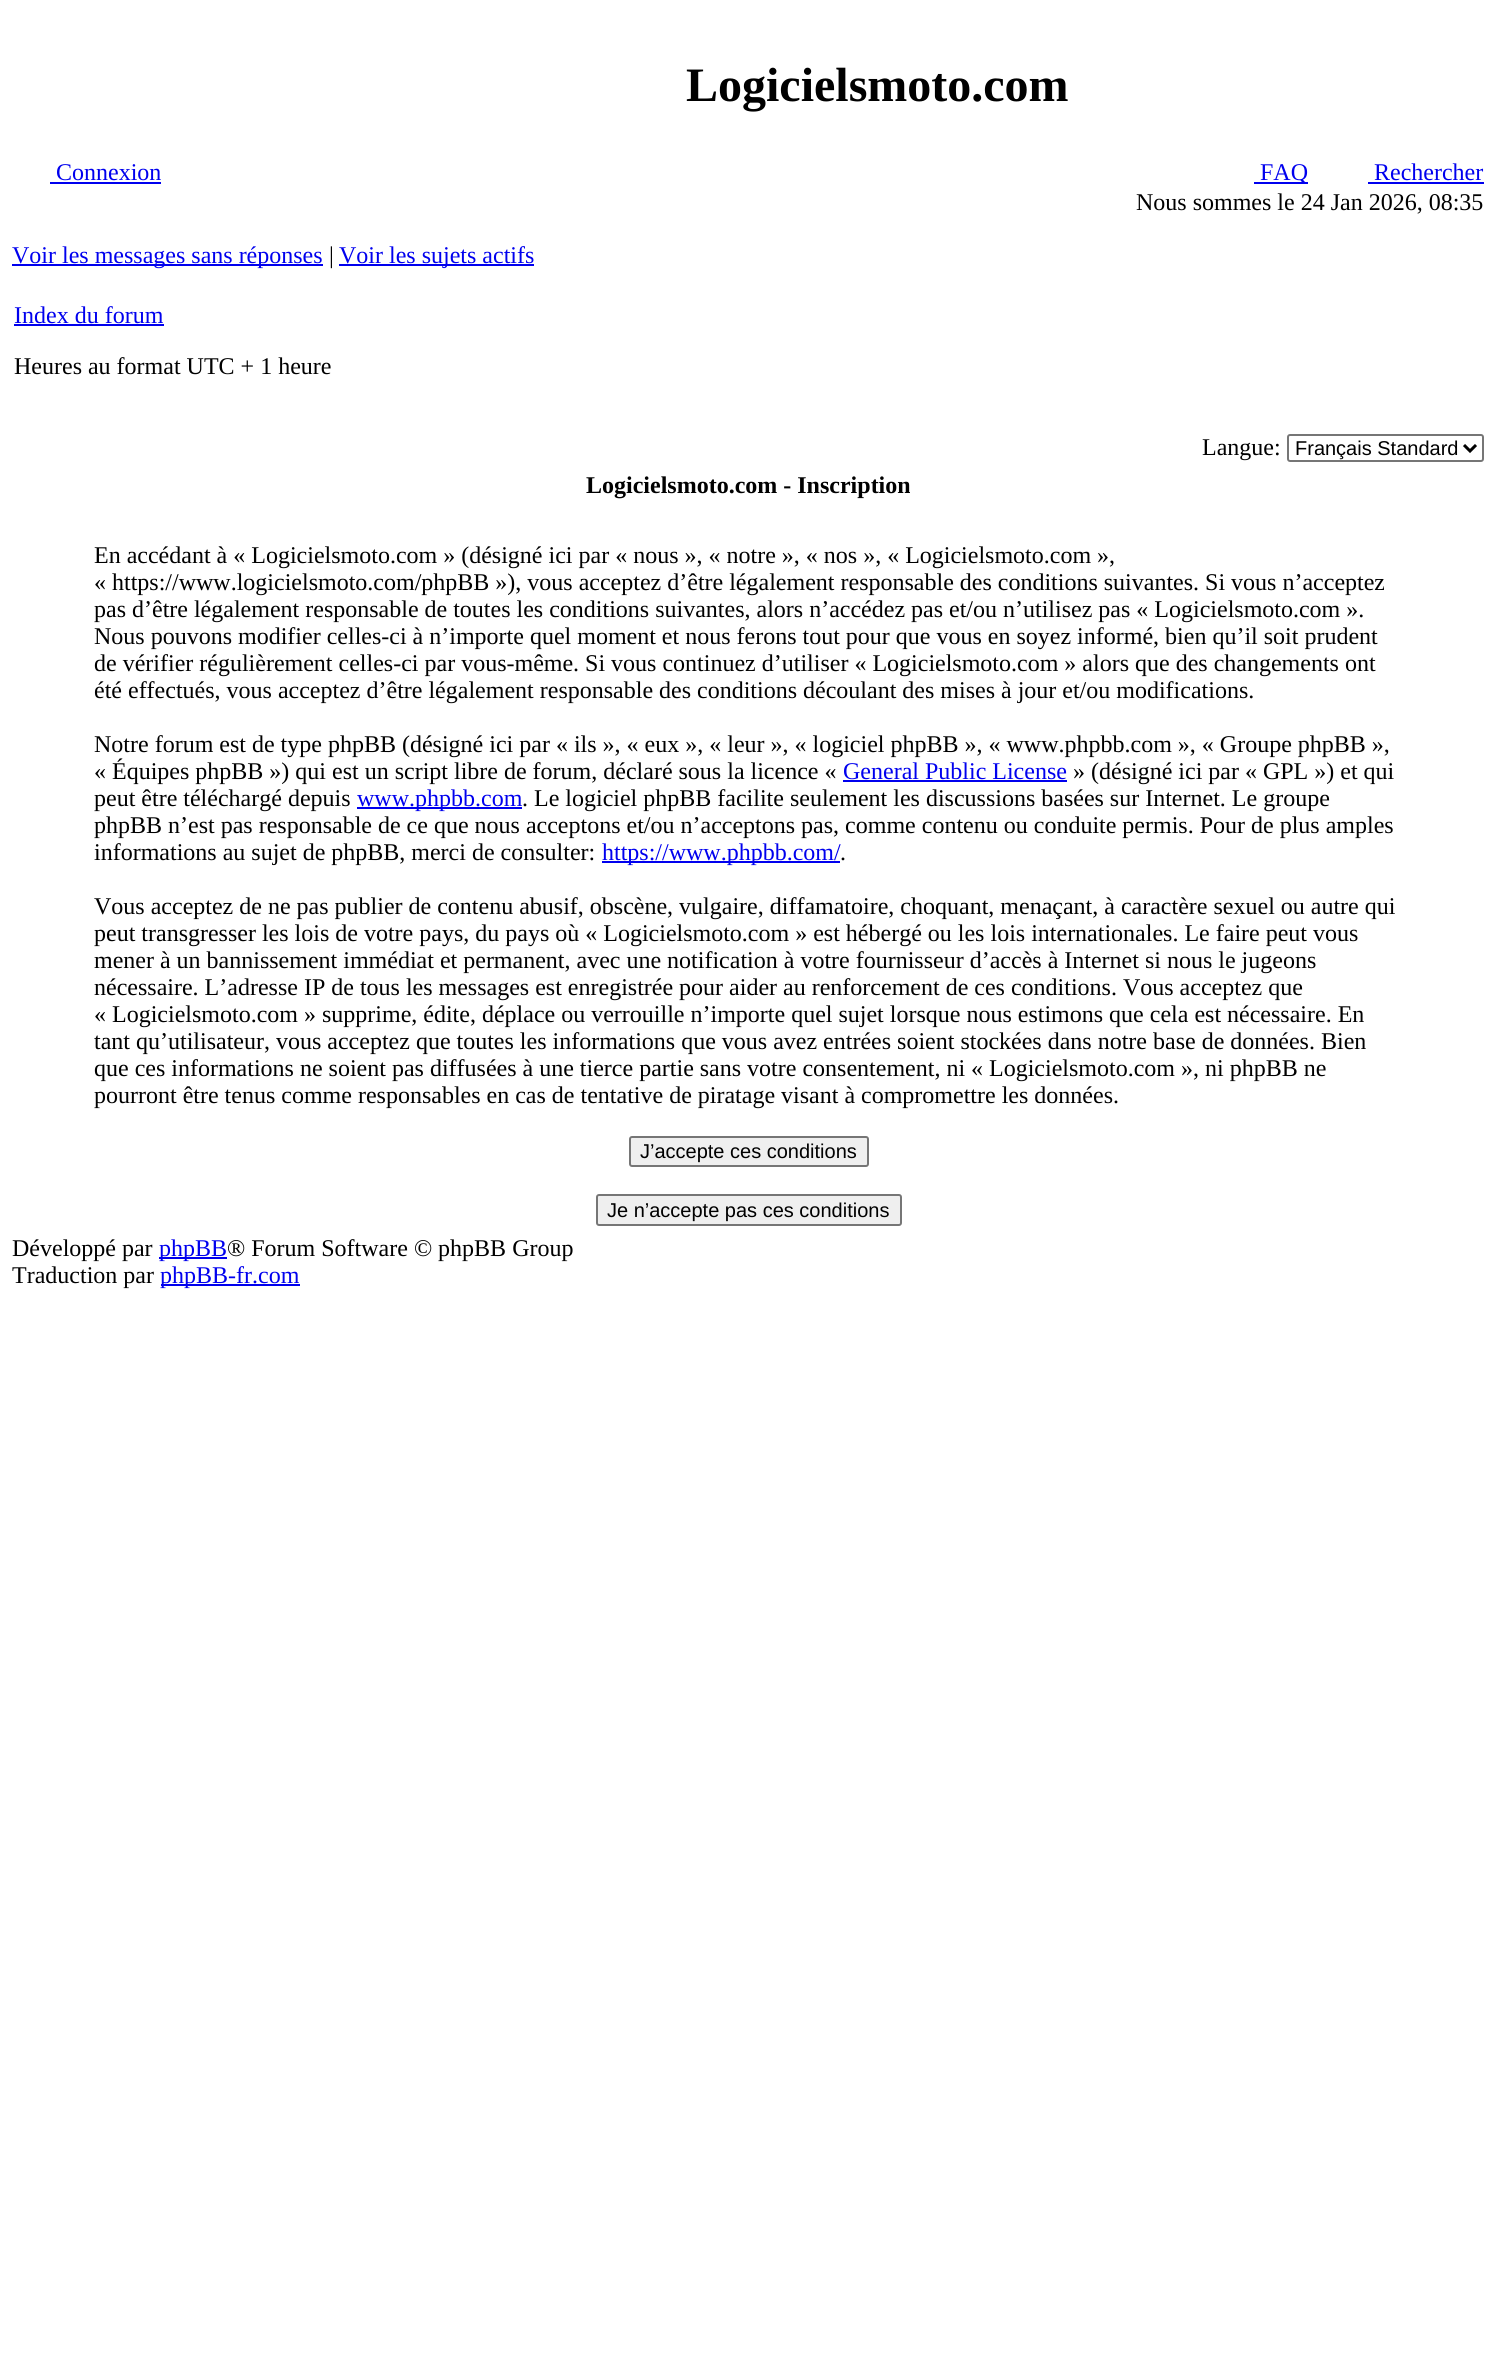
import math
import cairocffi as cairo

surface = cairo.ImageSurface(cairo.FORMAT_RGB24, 1496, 2375)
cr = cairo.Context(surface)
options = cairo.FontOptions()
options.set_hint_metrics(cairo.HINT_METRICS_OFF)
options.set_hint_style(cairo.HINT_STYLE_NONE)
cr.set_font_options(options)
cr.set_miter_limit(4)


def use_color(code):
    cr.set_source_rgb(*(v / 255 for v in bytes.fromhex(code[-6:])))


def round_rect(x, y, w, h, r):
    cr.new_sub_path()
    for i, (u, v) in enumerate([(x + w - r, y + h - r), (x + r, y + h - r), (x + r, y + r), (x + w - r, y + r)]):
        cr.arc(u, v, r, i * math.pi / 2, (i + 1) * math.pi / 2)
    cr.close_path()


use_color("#ffffff")
cr.paint()
cr.select_font_face("Liberation Serif", cairo.FONT_SLANT_NORMAL, cairo.FONT_WEIGHT_BOLD)
cr.set_font_size(48)
use_color("#000000")
cr.move_to(686, 101)
cr.show_text("Logicielsmoto.com")
cr.select_font_face("Liberation Serif")
cr.set_font_size(24)
use_color("#0000ee")
cr.move_to(56, 180)
cr.show_text("Connexion")
cr.rectangle(50, 182, 111, 2)
cr.fill()
cr.rectangle(1254, 182, 54, 2)
cr.fill()
cr.move_to(1260, 180)
cr.show_text("FAQ")
cr.move_to(1374, 180)
cr.show_text("Rechercher")
cr.rectangle(1368, 182, 116, 2)
cr.fill()
use_color("#000000")
cr.move_to(1136, 210)
cr.show_text("Nous sommes le 24 Jan 2026, 08:35")
use_color("#0000ee")
cr.rectangle(12, 264, 311, 2)
cr.fill()
cr.move_to(12, 263)
cr.show_text("Voir les messages sans réponses")
use_color("#000000")
cr.move_to(329, 263)
cr.show_text("|")
use_color("#0000ee")
cr.rectangle(339, 264, 195, 2)
cr.fill()
cr.move_to(339, 263)
cr.show_text("Voir les sujets actifs")
cr.move_to(14, 323)
cr.show_text("Index du forum")
cr.rectangle(14, 324, 150, 2)
cr.fill()
use_color("#000000")
cr.move_to(14, 374)
cr.show_text("Heures au format UTC + 1 heure")
cr.move_to(1202, 455)
cr.show_text("Langue:")
round_rect(1288, 435, 195, 26, 2)
use_color("#767676")
cr.stroke()
cr.new_path()
cr.move_to(1464, 445)
cr.line_to(1470, 451)
cr.line_to(1476, 445)
use_color("#000000")
cr.set_line_width(3)
cr.stroke()
cr.select_font_face("Liberation Sans")
cr.set_font_size(20)
cr.move_to(1295, 455)
cr.show_text("Français Standard")
cr.select_font_face("Liberation Serif", cairo.FONT_SLANT_NORMAL, cairo.FONT_WEIGHT_BOLD)
cr.set_font_size(24)
cr.move_to(586, 493)
cr.show_text("Logicielsmoto.com - Inscription")
cr.select_font_face("Liberation Serif")
cr.move_to(94, 563)
cr.show_text("En accédant à « Logicielsmoto.com » (désigné ici par « nous », « notre », « nos », « Logicielsmoto.com »,")
cr.move_to(94, 590)
cr.show_text("« https://www.logicielsmoto.com/phpBB »), vous acceptez d’être légalement responsable des conditions suivantes. Si vous n’acceptez")
cr.move_to(94, 617)
cr.show_text("pas d’être légalement responsable de toutes les conditions suivantes, alors n’accédez pas et/ou n’utilisez pas « Logicielsmoto.com ».")
cr.move_to(94, 644)
cr.show_text("Nous pouvons modifier celles-ci à n’importe quel moment et nous ferons tout pour que vous en soyez informé, bien qu’il soit prudent")
cr.move_to(94, 671)
cr.show_text("de vérifier régulièrement celles-ci par vous-même. Si vous continuez d’utiliser « Logicielsmoto.com » alors que des changements ont")
cr.move_to(94, 698)
cr.show_text("été effectués, vous acceptez d’être légalement responsable des conditions découlant des mises à jour et/ou modifications.")
cr.move_to(94, 752)
cr.show_text("Notre forum est de type phpBB (désigné ici par « ils », « eux », « leur », « logiciel phpBB », « www.phpbb.com », « Groupe phpBB »,")
cr.move_to(94, 779)
cr.show_text("« Équipes phpBB ») qui est un script libre de forum, déclaré sous la licence «")
use_color("#0000ee")
cr.move_to(843, 779)
cr.show_text("General Public License")
cr.rectangle(843, 780, 224, 2)
cr.fill()
use_color("#000000")
cr.move_to(1073, 779)
cr.show_text("» (désigné ici par « GPL ») et qui")
cr.move_to(94, 806)
cr.show_text("peut être téléchargé depuis")
use_color("#0000ee")
cr.rectangle(357, 807, 165, 2)
cr.fill()
cr.move_to(357, 806)
cr.show_text("www.phpbb.com")
use_color("#000000")
cr.move_to(522, 806)
cr.show_text(". Le logiciel phpBB facilite seulement les discussions basées sur Internet. Le groupe")
cr.move_to(94, 833)
cr.show_text("phpBB n’est pas responsable de ce que nous acceptons et/ou n’acceptons pas, comme contenu ou conduite permis. Pour de plus amples")
cr.move_to(94, 860)
cr.show_text("informations au sujet de phpBB, merci de consulter:")
use_color("#0000ee")
cr.rectangle(602, 861, 238, 2)
cr.fill()
cr.move_to(602, 860)
cr.show_text("https://www.phpbb.com/")
use_color("#000000")
cr.move_to(840, 860)
cr.show_text(".")
cr.move_to(94, 914)
cr.show_text("Vous acceptez de ne pas publier de contenu abusif, obscène, vulgaire, diffamatoire, choquant, menaçant, à caractère sexuel ou autre qui")
cr.move_to(94, 941)
cr.show_text("peut transgresser les lois de votre pays, du pays où « Logicielsmoto.com » est hébergé ou les lois internationales. Le faire peut vous")
cr.move_to(94, 968)
cr.show_text("mener à un bannissement immédiat et permanent, avec une notification à votre fournisseur d’accès à Internet si nous le jugeons")
cr.move_to(94, 995)
cr.show_text("nécessaire. L’adresse IP de tous les messages est enregistrée pour aider au renforcement de ces conditions. Vous acceptez que")
cr.move_to(94, 1022)
cr.show_text("« Logicielsmoto.com » supprime, édite, déplace ou verrouille n’importe quel sujet lorsque nous estimons que cela est nécessaire. En")
cr.move_to(94, 1049)
cr.show_text("tant qu’utilisateur, vous acceptez que toutes les informations que vous avez entrées soient stockées dans notre base de données. Bien")
cr.move_to(94, 1076)
cr.show_text("que ces informations ne soient pas diffusées à une tierce partie sans votre consentement, ni « Logicielsmoto.com », ni phpBB ne")
cr.move_to(94, 1103)
cr.show_text("pourront être tenus comme responsables en cas de tentative de piratage visant à compromettre les données.")
use_color("#efefef")
round_rect(630, 1137, 238, 29, 2)
cr.fill_preserve()
use_color("#767676")
cr.set_line_width(2)
cr.stroke()
cr.select_font_face("Liberation Sans")
cr.set_font_size(20)
use_color("#000000")
cr.move_to(640, 1158)
cr.show_text("J’accepte ces conditions")
use_color("#efefef")
round_rect(597, 1195, 304, 30, 2)
cr.fill_preserve()
use_color("#767676")
cr.stroke()
use_color("#000000")
cr.move_to(607, 1217)
cr.show_text("Je n’accepte pas ces conditions")
cr.select_font_face("Liberation Serif")
cr.set_font_size(24)
cr.move_to(12, 1256)
cr.show_text("Développé par")
use_color("#0000ee")
cr.rectangle(159, 1257, 68, 2)
cr.fill()
cr.move_to(159, 1256)
cr.show_text("phpBB")
use_color("#000000")
cr.move_to(227, 1256)
cr.show_text("® Forum Software © phpBB Group")
cr.move_to(12, 1283)
cr.show_text("Traduction par")
use_color("#0000ee")
cr.rectangle(161, 1284, 139, 2)
cr.fill()
cr.move_to(160, 1283)
cr.show_text("phpBB-fr.com")
surface.write_to_png("result.png")
